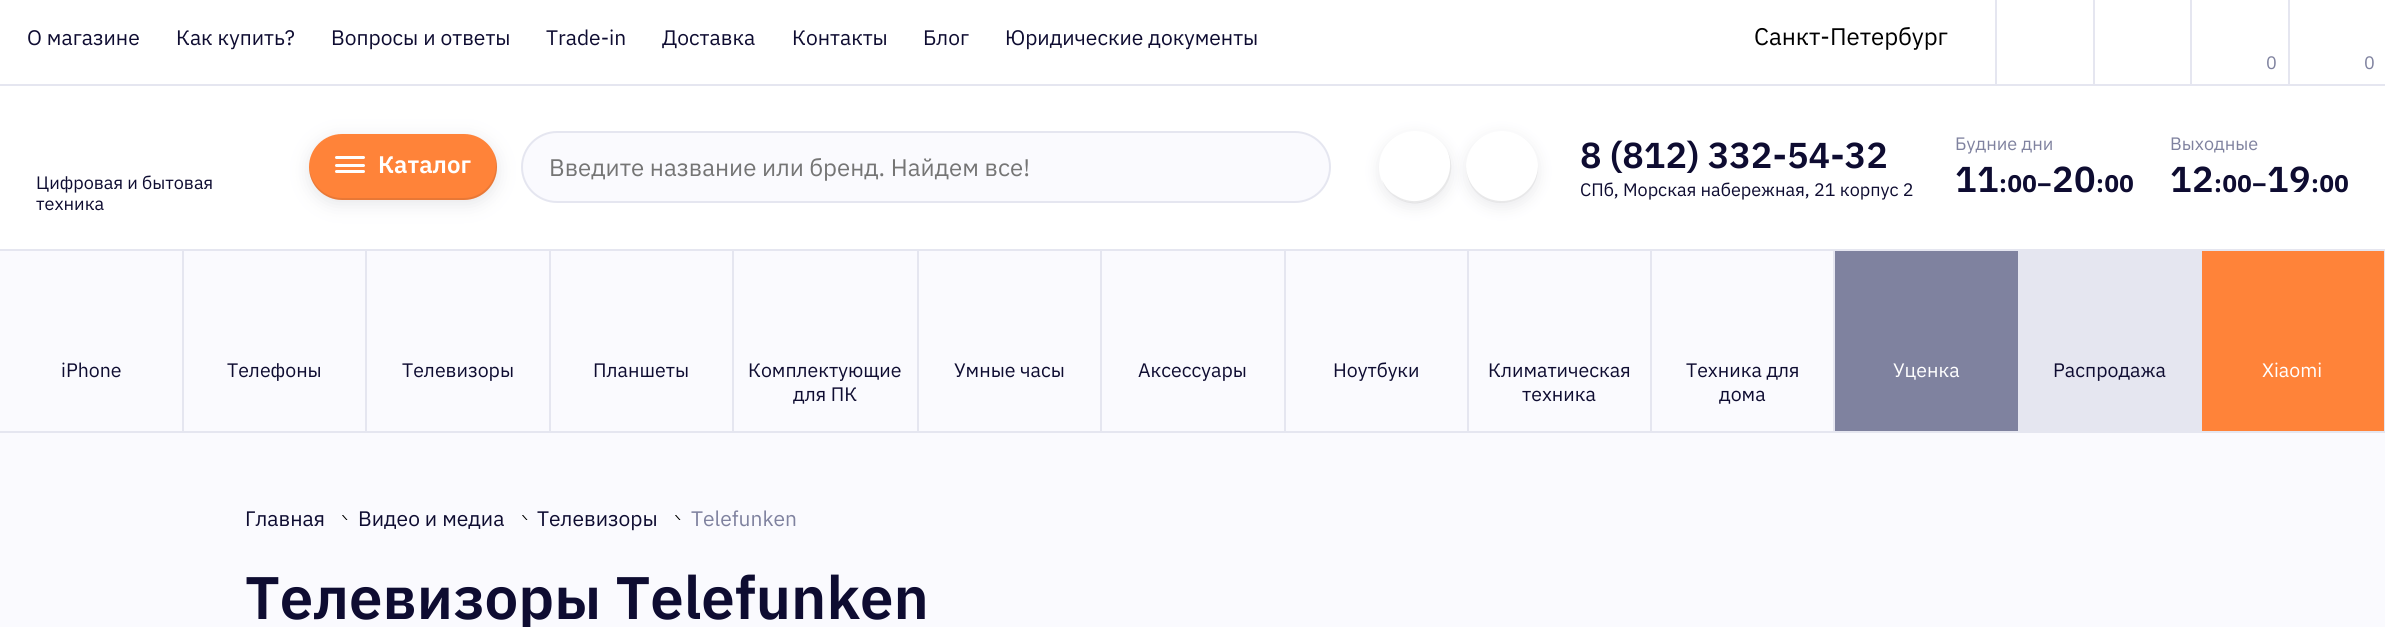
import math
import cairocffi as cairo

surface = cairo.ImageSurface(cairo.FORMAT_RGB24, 2385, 627)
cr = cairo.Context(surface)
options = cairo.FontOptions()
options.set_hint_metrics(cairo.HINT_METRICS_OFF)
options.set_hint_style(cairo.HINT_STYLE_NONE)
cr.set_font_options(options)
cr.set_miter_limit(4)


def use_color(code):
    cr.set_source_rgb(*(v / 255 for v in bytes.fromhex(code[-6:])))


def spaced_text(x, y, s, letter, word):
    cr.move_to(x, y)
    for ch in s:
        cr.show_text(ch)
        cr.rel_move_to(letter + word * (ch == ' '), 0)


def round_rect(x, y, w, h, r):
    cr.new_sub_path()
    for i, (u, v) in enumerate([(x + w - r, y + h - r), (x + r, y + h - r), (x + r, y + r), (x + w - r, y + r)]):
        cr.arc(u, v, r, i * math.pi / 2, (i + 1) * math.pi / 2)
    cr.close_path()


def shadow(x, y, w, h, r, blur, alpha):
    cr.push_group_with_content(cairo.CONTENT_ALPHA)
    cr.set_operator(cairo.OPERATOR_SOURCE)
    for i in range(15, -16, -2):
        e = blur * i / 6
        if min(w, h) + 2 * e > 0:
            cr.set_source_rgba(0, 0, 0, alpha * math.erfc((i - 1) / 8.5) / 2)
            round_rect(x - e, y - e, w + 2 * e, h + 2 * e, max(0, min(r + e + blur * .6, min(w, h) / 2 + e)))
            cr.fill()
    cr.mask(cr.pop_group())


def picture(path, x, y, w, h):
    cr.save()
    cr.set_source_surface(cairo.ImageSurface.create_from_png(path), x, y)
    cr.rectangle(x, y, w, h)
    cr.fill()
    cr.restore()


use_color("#fafafe")
cr.paint()
use_color("#ffffff")
cr.rectangle(0, 0, 2385, 249)
cr.fill()
use_color("#e5e6f0")
cr.rectangle(0, 431, 2385, 2)
cr.fill()
cr.rectangle(0, 84, 2385, 2)
cr.fill()
cr.select_font_face("IBM Plex Sans")
cr.set_font_size(21)
use_color("#0e0c31")
cr.move_to(27, 45)
cr.show_text("О магазине")
cr.move_to(176, 45)
cr.show_text("Как купить?")
cr.move_to(331, 45)
cr.show_text("Вопросы и ответы")
cr.move_to(546, 45)
cr.show_text("Trade-in")
cr.move_to(662, 45)
cr.show_text("Доставка")
cr.move_to(792, 45)
cr.show_text("Контакты")
cr.move_to(923, 45)
cr.show_text("Блог")
cr.move_to(1005, 45)
cr.show_text("Юридические документы")
cr.set_font_size(24)
use_color("#000000")
cr.move_to(1754, 45)
cr.show_text("Санкт-Петербург")
use_color("#e5e6f0")
cr.rectangle(1995, 0, 2, 84)
cr.fill()
cr.rectangle(2093, 0, 2, 84)
cr.fill()
cr.rectangle(2190, 0, 2, 84)
cr.fill()
cr.set_font_size(18)
use_color("#7f829f")
cr.move_to(2266, 69)
cr.show_text("0")
use_color("#e5e6f0")
cr.rectangle(2288, 0, 2, 84)
cr.fill()
use_color("#7f829f")
cr.move_to(2364, 69)
cr.show_text("0")
use_color("#e5e6f0")
cr.rectangle(0, 249, 2385, 2)
cr.fill()
use_color("#737588")
shadow(309, 138, 188, 66, 33, 9, 0.18)
use_color("#ff8339")
round_rect(309, 134, 188, 66, 33)
cr.fill()
cr.set_source_rgba(0.11, 0.114, 0.125, 0.1)
cr.new_path()
cr.move_to(309, 166)
cr.line_to(309, 167)
cr.curve_to(309, 185, 324, 200, 342, 200)
cr.line_to(464, 200)
cr.curve_to(482, 200, 497, 185, 497, 167)
cr.curve_to(497, 162, 496, 157, 494, 152)
cr.curve_to(495, 156, 496, 161, 496, 165)
cr.curve_to(496, 183, 482, 198, 464, 198)
cr.line_to(342, 198)
cr.curve_to(324, 198, 310, 184, 309, 166)
cr.close_path()
cr.fill()
use_color("#ffffff")
round_rect(335, 156, 30, 3, 1.5)
cr.fill()
round_rect(335, 164, 30, 3, 1.5)
cr.fill()
round_rect(335, 170, 30, 3, 1.5)
cr.fill()
cr.select_font_face("IBM Plex Sans SemiBold")
cr.set_font_size(24)
cr.move_to(378, 173)
cr.show_text("Каталог")
use_color("#fafafe")
round_rect(522, 132, 808, 70, 35)
cr.fill_preserve()
use_color("#e5e6f0")
cr.stroke()
cr.select_font_face("IBM Plex Sans")
use_color("#757575")
cr.move_to(549, 176)
cr.show_text("Введите название или бренд. Найдем все!")
use_color("#737588")
shadow(1379, 135, 72, 72, 36, 7.5, 0.15)
use_color("#ffffff")
cr.arc(1415, 167, 36, 0, 2 * math.pi)
cr.fill()
cr.set_source_rgba(0.11, 0.114, 0.125, 0.1)
cr.new_path()
cr.move_to(1382, 180)
cr.curve_to(1384, 187, 1389, 193, 1395, 197)
cr.curve_to(1426, 218, 1464, 183, 1447, 150)
cr.curve_to(1461, 182, 1425, 215, 1395, 195)
cr.curve_to(1389, 192, 1385, 186, 1382, 180)
cr.close_path()
cr.fill()
use_color("#737588")
shadow(1466, 135, 72, 72, 36, 7.5, 0.15)
use_color("#ffffff")
cr.arc(1502, 167, 36, 0, 2 * math.pi)
cr.fill()
cr.set_source_rgba(0.11, 0.114, 0.125, 0.1)
cr.new_path()
cr.move_to(1466, 166)
cr.curve_to(1466, 173, 1468, 181, 1472, 187)
cr.curve_to(1492, 217, 1539, 202, 1538, 166)
cr.curve_to(1537, 186, 1521, 201, 1502, 201)
cr.curve_to(1482, 201, 1467, 186, 1466, 166)
cr.close_path()
cr.fill()
cr.select_font_face("IBM Plex Sans SemiBold")
cr.set_font_size(36)
use_color("#0e0c31")
cr.move_to(1580, 168)
cr.show_text("8 (812) 332-54-32")
cr.select_font_face("IBM Plex Sans")
cr.set_font_size(18)
cr.move_to(1580, 196)
cr.show_text("СПб, Морская набережная, 21 корпус 2")
use_color("#7f829f")
cr.move_to(1955, 150)
cr.show_text("Будние дни")
cr.select_font_face("IBM Plex Sans SemiBold")
cr.set_font_size(36)
use_color("#0e0c31")
spaced_text(1955, 192, "11", 0.5, 0)
cr.select_font_face("IBM Plex Sans", cairo.FONT_SLANT_NORMAL, cairo.FONT_WEIGHT_BOLD)
cr.set_font_size(24)
spaced_text(1999, 192, ":00–", 0.5, 0)
cr.select_font_face("IBM Plex Sans SemiBold")
cr.set_font_size(36)
spaced_text(2052, 192, "20", 0.5, 0)
cr.select_font_face("IBM Plex Sans", cairo.FONT_SLANT_NORMAL, cairo.FONT_WEIGHT_BOLD)
cr.set_font_size(24)
spaced_text(2096, 192, ":00", 0.5, 0)
cr.select_font_face("IBM Plex Sans")
cr.set_font_size(18)
use_color("#7f829f")
cr.move_to(2170, 150)
cr.show_text("Выходные")
cr.select_font_face("IBM Plex Sans SemiBold")
cr.set_font_size(36)
use_color("#0e0c31")
spaced_text(2170, 192, "12", 0.5, 0)
cr.select_font_face("IBM Plex Sans", cairo.FONT_SLANT_NORMAL, cairo.FONT_WEIGHT_BOLD)
cr.set_font_size(24)
spaced_text(2214, 192, ":00–", 0.5, 0)
cr.select_font_face("IBM Plex Sans SemiBold")
cr.set_font_size(36)
spaced_text(2267, 192, "19", 0.5, 0)
cr.select_font_face("IBM Plex Sans", cairo.FONT_SLANT_NORMAL, cairo.FONT_WEIGHT_BOLD)
cr.set_font_size(24)
spaced_text(2311, 192, ":00", 0.5, 0)
cr.select_font_face("IBM Plex Sans")
cr.set_font_size(18)
cr.move_to(36, 189)
cr.show_text("Цифровая и бытовая")
cr.move_to(36, 210)
cr.show_text("техника")
use_color("#e5e6f0")
cr.rectangle(182, 251, 2, 180)
cr.fill()
cr.set_font_size(19.5)
use_color("#0e0c31")
cr.move_to(61, 377)
cr.show_text("iPhone")
use_color("#e5e6f0")
cr.rectangle(365, 251, 2, 180)
cr.fill()
use_color("#0e0c31")
cr.move_to(227, 377)
cr.show_text("Телефоны")
use_color("#e5e6f0")
cr.rectangle(549, 251, 2, 180)
cr.fill()
use_color("#0e0c31")
cr.move_to(402, 377)
cr.show_text("Телевизоры")
use_color("#e5e6f0")
cr.rectangle(732, 251, 2, 180)
cr.fill()
use_color("#0e0c31")
cr.move_to(593, 377)
cr.show_text("Планшеты")
use_color("#e5e6f0")
cr.rectangle(917, 251, 2, 180)
cr.fill()
use_color("#0e0c31")
cr.move_to(748, 377)
cr.show_text("Комплектующие")
cr.move_to(793, 401)
cr.show_text("для ПК")
use_color("#e5e6f0")
cr.rectangle(1100, 251, 2, 180)
cr.fill()
use_color("#0e0c31")
cr.move_to(954, 377)
cr.show_text("Умные часы")
use_color("#e5e6f0")
cr.rectangle(1284, 251, 2, 180)
cr.fill()
use_color("#0e0c31")
cr.move_to(1138, 377)
cr.show_text("Аксессуары")
use_color("#e5e6f0")
cr.rectangle(1467, 251, 2, 180)
cr.fill()
use_color("#0e0c31")
cr.move_to(1333, 377)
cr.show_text("Ноутбуки")
use_color("#e5e6f0")
cr.rectangle(1650, 251, 2, 180)
cr.fill()
use_color("#0e0c31")
cr.move_to(1488, 377)
cr.show_text("Климатическая")
cr.move_to(1522, 401)
cr.show_text("техника")
use_color("#e5e6f0")
cr.rectangle(1833, 251, 2, 180)
cr.fill()
use_color("#0e0c31")
cr.move_to(1686, 377)
cr.show_text("Техника для")
cr.move_to(1719, 401)
cr.show_text("дома")
use_color("#e5e6f0")
cr.rectangle(2018, 251, 1, 180)
cr.fill()
use_color("#7f829f")
cr.rectangle(1835, 251, 183, 180)
cr.fill()
use_color("#ffffff")
cr.move_to(1893, 377)
cr.show_text("Уценка")
use_color("#e5e6f0")
cr.rectangle(2019, 251, 183, 180)
cr.fill()
use_color("#0e0c31")
cr.move_to(2053, 377)
cr.show_text("Распродажа")
use_color("#e5e6f0")
cr.rectangle(2384, 251, 1, 180)
cr.fill()
use_color("#ff8339")
cr.rectangle(2202, 251, 182, 180)
cr.fill()
use_color("#ffffff")
cr.move_to(2262, 377)
cr.show_text("Xiaomi")
cr.set_font_size(21)
use_color("#0e0c31")
cr.move_to(245, 526)
cr.show_text("Главная")
picture("img1.png", 342, 515, 6, 5)
cr.move_to(358, 526)
cr.show_text("Видео и медиа")
picture("img1.png", 522, 515, 6, 5)
cr.move_to(537, 526)
cr.show_text("Телевизоры")
picture("img1.png", 675, 515, 6, 5)
use_color("#7f829f")
cr.move_to(691, 526)
cr.show_text("Telefunken")
cr.select_font_face("IBM Plex Sans SemiBold")
cr.set_font_size(60)
use_color("#0e0c31")
cr.move_to(245, 619)
cr.show_text("Телевизоры Telefunken")
surface.write_to_png("result.png")
